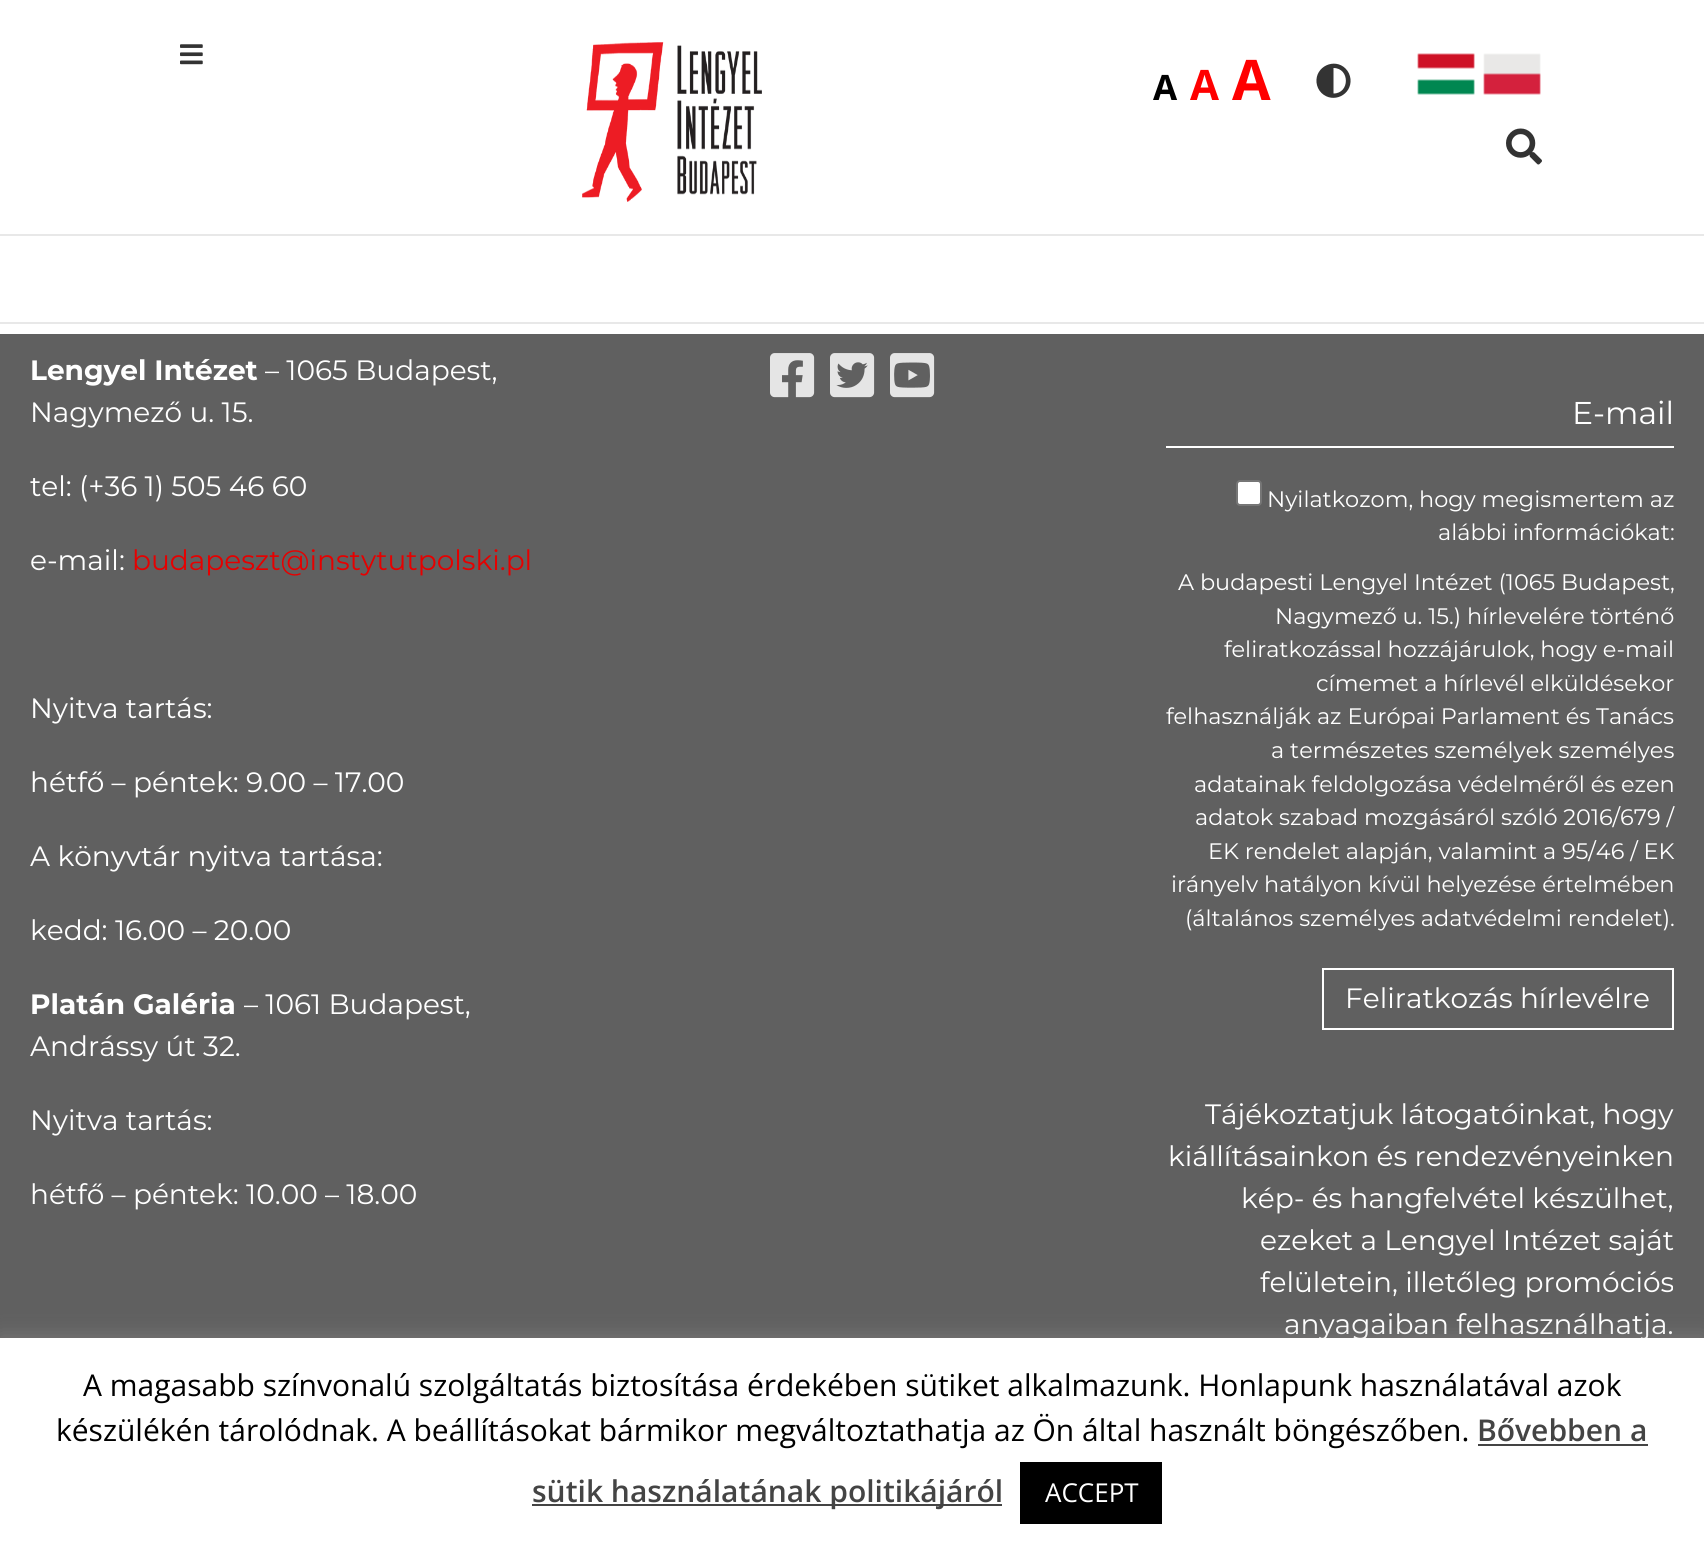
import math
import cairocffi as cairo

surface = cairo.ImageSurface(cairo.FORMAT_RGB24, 1704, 1557)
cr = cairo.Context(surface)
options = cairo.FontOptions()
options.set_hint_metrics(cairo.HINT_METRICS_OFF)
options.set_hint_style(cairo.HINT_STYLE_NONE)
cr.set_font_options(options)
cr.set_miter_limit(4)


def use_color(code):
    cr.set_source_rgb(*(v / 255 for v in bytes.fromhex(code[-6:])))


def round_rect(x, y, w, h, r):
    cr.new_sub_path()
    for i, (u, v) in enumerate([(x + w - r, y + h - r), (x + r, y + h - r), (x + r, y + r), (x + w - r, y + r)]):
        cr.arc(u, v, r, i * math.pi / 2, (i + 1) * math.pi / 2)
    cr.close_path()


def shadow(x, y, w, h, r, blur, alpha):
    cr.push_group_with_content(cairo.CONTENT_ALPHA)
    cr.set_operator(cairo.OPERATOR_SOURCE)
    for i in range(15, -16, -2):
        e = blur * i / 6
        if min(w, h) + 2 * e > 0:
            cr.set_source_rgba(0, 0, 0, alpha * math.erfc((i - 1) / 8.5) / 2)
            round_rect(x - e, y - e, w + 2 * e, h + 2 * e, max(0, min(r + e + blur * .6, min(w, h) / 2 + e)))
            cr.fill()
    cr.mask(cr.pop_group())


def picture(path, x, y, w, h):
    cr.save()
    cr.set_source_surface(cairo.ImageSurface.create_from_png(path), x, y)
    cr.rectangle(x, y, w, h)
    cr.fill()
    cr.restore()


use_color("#606060")
cr.paint()
use_color("#ffffff")
cr.rectangle(0, 0, 1704, 334)
cr.fill()
picture("img1.png", 180, 44, 23, 21)
picture("img2.png", 582, 42, 180, 160)
cr.select_font_face("Open Sans", cairo.FONT_SLANT_NORMAL, cairo.FONT_WEIGHT_BOLD)
cr.set_font_size(35)
use_color("#000000")
cr.move_to(1153, 100)
cr.show_text("A")
cr.set_font_size(42)
use_color("#ff0000")
cr.move_to(1190, 100)
cr.show_text("A")
cr.set_font_size(56)
cr.move_to(1232, 100)
cr.show_text("A")
use_color("#333333")
cr.new_path()
cr.move_to(1321.5, 93)
cr.curve_to(1318.5, 90, 1317, 86.5, 1316.5, 82.5)
cr.curve_to(1315, 66.5, 1334.5, 57.5, 1345.5, 68.5)
cr.curve_to(1348.5, 71.5, 1350, 75, 1350.5, 79)
cr.curve_to(1352, 95, 1333, 104, 1321.5, 93)
cr.close_path()
cr.move_to(1333.5, 93.5)
cr.curve_to(1350, 93.5, 1350, 68, 1333.5, 68)
cr.close_path()
cr.fill()
picture("img3.png", 1417, 53, 58, 42)
picture("img4.png", 1483, 53, 58, 42)
picture("img5.png", 1506, 128, 36, 37)
use_color("#e8e8e8")
cr.rectangle(0, 234, 1704, 2)
cr.fill()
cr.rectangle(0, 322, 1704, 2)
cr.fill()
cr.select_font_face("Montserrat", cairo.FONT_SLANT_NORMAL, cairo.FONT_WEIGHT_BOLD)
cr.set_font_size(28)
use_color("#ffffff")
cr.move_to(30, 380)
cr.show_text("Lengyel Intézet")
cr.select_font_face("Montserrat")
cr.move_to(265, 380)
cr.show_text("– 1065 Budapest,")
cr.move_to(30, 422)
cr.show_text("Nagymező u. 15.")
cr.move_to(30, 496)
cr.show_text("tel: (+36 1) 505 46 60")
cr.move_to(30, 570)
cr.show_text("e-mail:")
use_color("#e60000")
cr.move_to(132, 570)
cr.show_text("budapeszt@instytutpolski.pl")
use_color("#ffffff")
cr.move_to(30, 718)
cr.show_text("Nyitva tartás:")
cr.move_to(30, 792)
cr.show_text("hétfő – péntek: 9.00 – 17.00")
cr.move_to(30, 866)
cr.show_text("A könyvtár nyitva tartása:")
cr.move_to(30, 940)
cr.show_text("kedd: 16.00 – 20.00")
cr.select_font_face("Montserrat", cairo.FONT_SLANT_NORMAL, cairo.FONT_WEIGHT_BOLD)
cr.move_to(30, 1014)
cr.show_text("Platán Galéria")
cr.select_font_face("Montserrat")
cr.move_to(244, 1014)
cr.show_text("– 1061 Budapest,")
cr.move_to(30, 1056)
cr.show_text("Andrássy út 32.")
cr.move_to(30, 1130)
cr.show_text("Nyitva tartás:")
cr.move_to(30, 1204)
cr.show_text("hétfő – péntek: 10.00 – 18.00")
picture("img6.png", 770, 353, 45, 45)
picture("img7.png", 830, 353, 45, 45)
picture("img8.png", 890, 353, 45, 45)
cr.rectangle(1166, 446, 508, 2)
cr.fill()
cr.set_font_size(31.5)
cr.move_to(1572, 424)
cr.show_text("E-mail")
round_rect(1237, 481, 24, 24, 3)
cr.fill_preserve()
use_color("#767676")
cr.stroke()
cr.set_font_size(22.4)
use_color("#ffffff")
cr.move_to(1267, 507)
cr.show_text("Nyilatkozom, hogy megismertem az")
cr.move_to(1438, 540)
cr.show_text("alábbi információkat:")
cr.move_to(1178, 590)
cr.show_text("A budapesti Lengyel Intézet (1065 Budapest,")
cr.move_to(1275, 624)
cr.show_text("Nagymező u. 15.) hírlevelére történő")
cr.move_to(1224, 657)
cr.show_text("feliratkozással hozzájárulok, hogy e-mail")
cr.move_to(1316, 691)
cr.show_text("címemet a hírlevél elküldésekor")
cr.move_to(1166, 724)
cr.show_text("felhasználják az Európai Parlament és Tanács")
cr.move_to(1271, 758)
cr.show_text("a természetes személyek személyes")
cr.move_to(1194, 792)
cr.show_text("adatainak feldolgozása védelméről és ezen")
cr.move_to(1195, 825)
cr.show_text("adatok szabad mozgásáról szóló 2016/679 /")
cr.move_to(1208, 859)
cr.show_text("EK rendelet alapján, valamint a 95/46 / EK")
cr.move_to(1171, 892)
cr.show_text("irányelv hatályon kívül helyezése értelmében")
cr.move_to(1185, 926)
cr.show_text("(általános személyes adatvédelmi rendelet).")
cr.rectangle(1323, 969, 350, 60)
cr.stroke()
cr.set_font_size(28)
cr.move_to(1345, 1008)
cr.show_text("Feliratkozás hírlevélre")
cr.move_to(1205, 1124)
cr.show_text("Tájékoztatjuk látogatóinkat, hogy")
cr.move_to(1168, 1166)
cr.show_text("kiállításainkon és rendezvényeinken")
cr.move_to(1241, 1208)
cr.show_text("kép- és hangfelvétel készülhet,")
cr.move_to(1260, 1250)
cr.show_text("ezeket a Lengyel Intézet saját")
cr.move_to(1260, 1292)
cr.show_text("felületein, illetőleg promóciós")
cr.move_to(1284, 1334)
cr.show_text("anyagaiban felhasználhatja.")
use_color("#acabab")
shadow(0, 1336, 1704, 220, 0, 10, 0.3)
use_color("#ffffff")
cr.rectangle(0, 1338, 1704, 219)
cr.fill()
cr.select_font_face("Open Sans")
cr.set_font_size(30)
use_color("#000000")
cr.move_to(83, 1396)
cr.show_text("A magasabb színvonalú szolgáltatás biztosítása érdekében sütiket alkalmazunk. Honlapunk használatával azok")
cr.move_to(56, 1441)
cr.show_text("készülékén tárolódnak. A beállításokat bármikor megváltoztathatja az Ön által használt böngészőben.")
cr.select_font_face("Open Sans SemiBold")
use_color("#444444")
cr.move_to(1477, 1441)
cr.show_text("Bővebben a")
cr.rectangle(1478, 1444, 170, 2)
cr.fill()
cr.rectangle(532, 1504, 470, 2)
cr.fill()
cr.move_to(532, 1502)
cr.show_text("sütik használatának politikájáról")
use_color("#000000")
cr.rectangle(1020, 1462, 142, 62)
cr.fill()
cr.select_font_face("Open Sans")
cr.set_font_size(26)
use_color("#ffffff")
cr.move_to(1045, 1502)
cr.show_text("ACCEPT")
surface.write_to_png("result.png")
